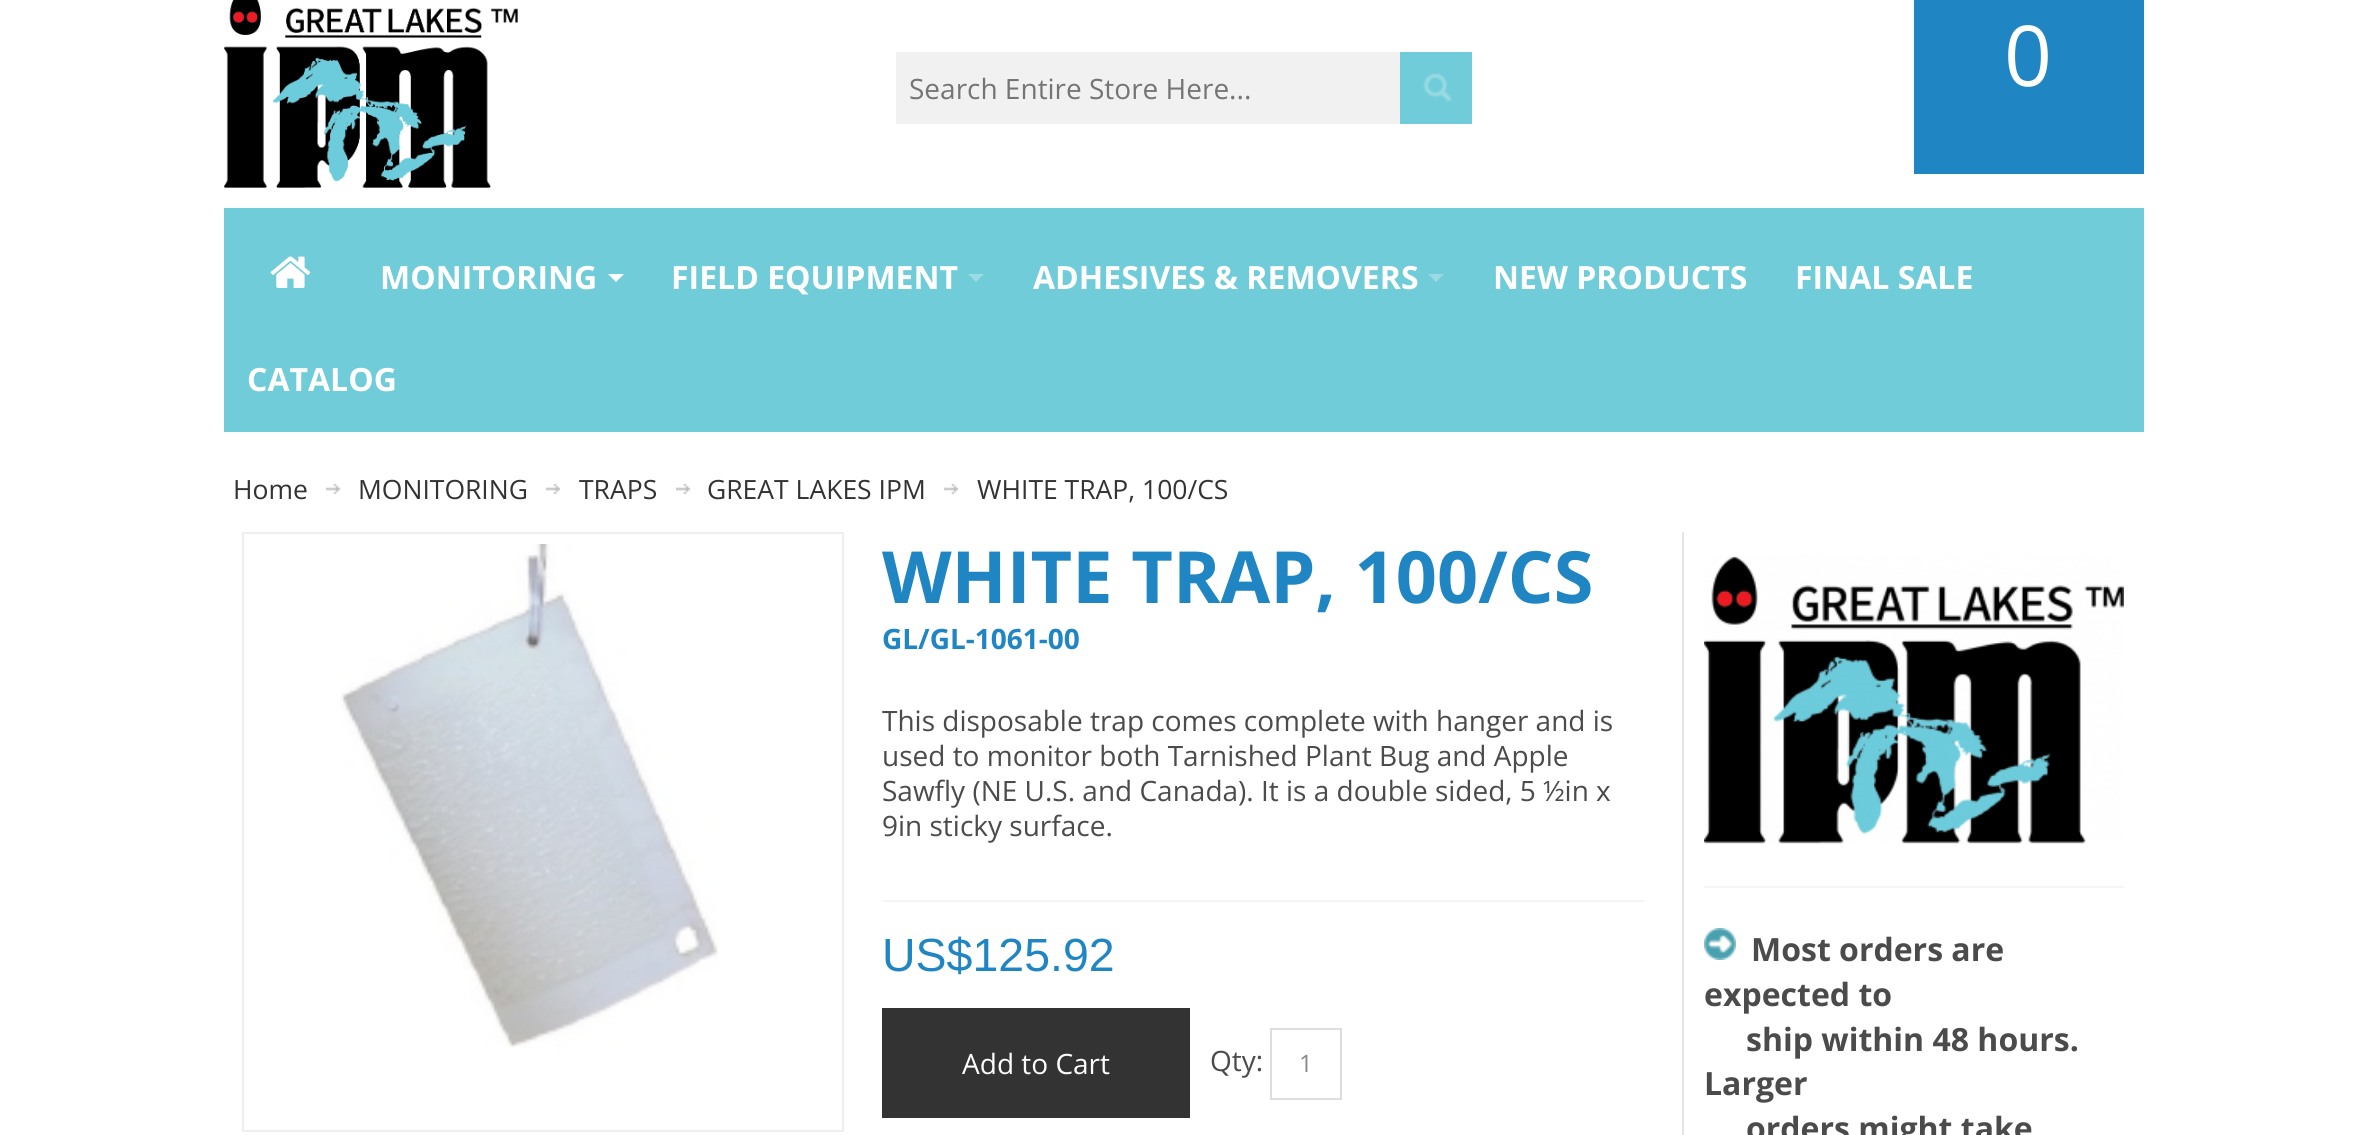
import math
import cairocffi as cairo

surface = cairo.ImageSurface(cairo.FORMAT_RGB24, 2366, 1135)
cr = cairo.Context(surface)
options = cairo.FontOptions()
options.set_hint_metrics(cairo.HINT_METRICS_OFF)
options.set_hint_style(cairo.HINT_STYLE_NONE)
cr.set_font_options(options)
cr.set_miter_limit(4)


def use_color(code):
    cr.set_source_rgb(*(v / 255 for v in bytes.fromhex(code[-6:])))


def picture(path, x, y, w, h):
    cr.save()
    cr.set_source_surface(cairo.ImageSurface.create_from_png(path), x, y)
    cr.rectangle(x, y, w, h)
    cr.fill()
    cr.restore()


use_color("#ffffff")
cr.paint()
picture("img1.png", 224, 0, 294, 188)
use_color("#f1f1f1")
cr.rectangle(896, 52, 504, 72)
cr.fill()
cr.select_font_face("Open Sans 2")
cr.set_font_size(28)
use_color("#757575")
cr.move_to(909, 99)
cr.show_text("Search Entire Store Here...")
use_color("#70ccd9")
cr.rectangle(1400, 52, 72, 72)
cr.fill()
picture("img2.png", 1423, 73, 29, 30)
use_color("#2085c3")
cr.rectangle(1914, 0, 230, 174)
cr.fill()
cr.select_font_face("Open Sans")
cr.set_font_size(84)
use_color("#ffffff")
cr.move_to(2004, 86)
cr.show_text("0")
use_color("#70ccd9")
cr.rectangle(224, 208, 1920, 224)
cr.fill()
picture("img3.png", 270, 256, 41, 32)
cr.select_font_face("Open Sans", cairo.FONT_SLANT_NORMAL, cairo.FONT_WEIGHT_BOLD)
cr.set_font_size(32)
use_color("#ffffff")
cr.move_to(380, 289)
cr.show_text("MONITORING")
cr.new_path()
cr.move_to(608, 274)
cr.line_to(624, 274)
cr.line_to(616, 282)
cr.close_path()
cr.fill()
cr.move_to(671, 289)
cr.show_text("FIELD EQUIPMENT")
use_color("#9bdbe4")
cr.new_path()
cr.move_to(968, 274)
cr.line_to(984, 274)
cr.line_to(976, 282)
cr.close_path()
cr.fill()
use_color("#ffffff")
cr.move_to(1033, 289)
cr.show_text("ADHESIVES & REMOVERS")
use_color("#9bdbe4")
cr.new_path()
cr.move_to(1428, 274)
cr.line_to(1444, 274)
cr.line_to(1436, 282)
cr.close_path()
cr.fill()
use_color("#ffffff")
cr.move_to(1493, 289)
cr.show_text("NEW PRODUCTS")
cr.move_to(1795, 289)
cr.show_text("FINAL SALE")
cr.move_to(247, 391)
cr.show_text("CATALOG")
cr.select_font_face("Open Sans")
cr.set_font_size(26.5)
use_color("#333333")
cr.move_to(233, 499)
cr.show_text("Home")
picture("img4.png", 326, 484, 14, 10)
cr.move_to(358, 499)
cr.show_text("MONITORING")
picture("img4.png", 546, 484, 14, 10)
cr.move_to(579, 499)
cr.show_text("TRAPS")
picture("img4.png", 676, 484, 14, 10)
cr.move_to(707, 499)
cr.show_text("GREAT LAKES IPM")
picture("img4.png", 944, 484, 14, 10)
cr.move_to(977, 499)
cr.show_text("WHITE TRAP, 100/CS")
cr.rectangle(243, 533, 600, 598)
use_color("#eeeeee")
cr.stroke()
picture("img5.png", 340, 544, 378, 504)
cr.select_font_face("Open Sans", cairo.FONT_SLANT_NORMAL, cairo.FONT_WEIGHT_BOLD)
cr.set_font_size(72)
use_color("#2085c3")
cr.move_to(882, 603)
cr.show_text("WHITE TRAP, 100/CS")
cr.set_font_size(28)
cr.move_to(882, 649)
cr.show_text("GL/GL-1061-00")
cr.select_font_face("Open Sans")
use_color("#4b4b4b")
cr.move_to(882, 731)
cr.show_text("This disposable trap comes complete with hanger and is")
cr.move_to(882, 766)
cr.show_text("used to monitor both Tarnished Plant Bug and Apple")
cr.move_to(882, 801)
cr.show_text("Sawfly (NE U.S. and Canada). It is a double sided, 5 ½in x")
cr.move_to(882, 836)
cr.show_text("9in sticky surface.")
use_color("#f5f5f5")
cr.rectangle(882, 900, 762, 2)
cr.fill()
cr.select_font_face("Liberation Sans")
cr.set_font_size(46.5)
use_color("#2085c3")
cr.move_to(882, 971)
cr.show_text("US$125.92")
use_color("#333333")
cr.rectangle(882, 1008, 308, 110)
cr.fill()
cr.select_font_face("Open Sans 2")
cr.set_font_size(28)
use_color("#ffffff")
cr.move_to(962, 1074)
cr.show_text("Add to Cart")
cr.select_font_face("Open Sans")
use_color("#4b4b4b")
cr.move_to(1210, 1071)
cr.show_text("Qty:")
cr.rectangle(1271, 1029, 70, 70)
use_color("#dddddd")
cr.stroke()
cr.select_font_face("Open Sans 2")
cr.set_font_size(24)
use_color("#888888")
cr.move_to(1299, 1072)
cr.show_text("1")
use_color("#e5e5e5")
cr.rectangle(1682, 532, 2, 603)
cr.fill()
picture("img6.png", 1704, 555, 420, 289)
use_color("#f5f5f5")
cr.rectangle(1704, 886, 420, 2)
cr.fill()
picture("img7.png", 1704, 928, 32, 32)
cr.select_font_face("Open Sans", cairo.FONT_SLANT_NORMAL, cairo.FONT_WEIGHT_BOLD)
cr.set_font_size(32)
use_color("#4b4b4b")
cr.move_to(1751, 961)
cr.show_text("Most orders are")
cr.move_to(1704, 1006)
cr.show_text("expected to")
cr.move_to(1746, 1051)
cr.show_text("ship within 48 hours.")
cr.move_to(1704, 1095)
cr.show_text("Larger")
cr.move_to(1746, 1140)
cr.show_text("orders might take")
surface.write_to_png("result.png")
